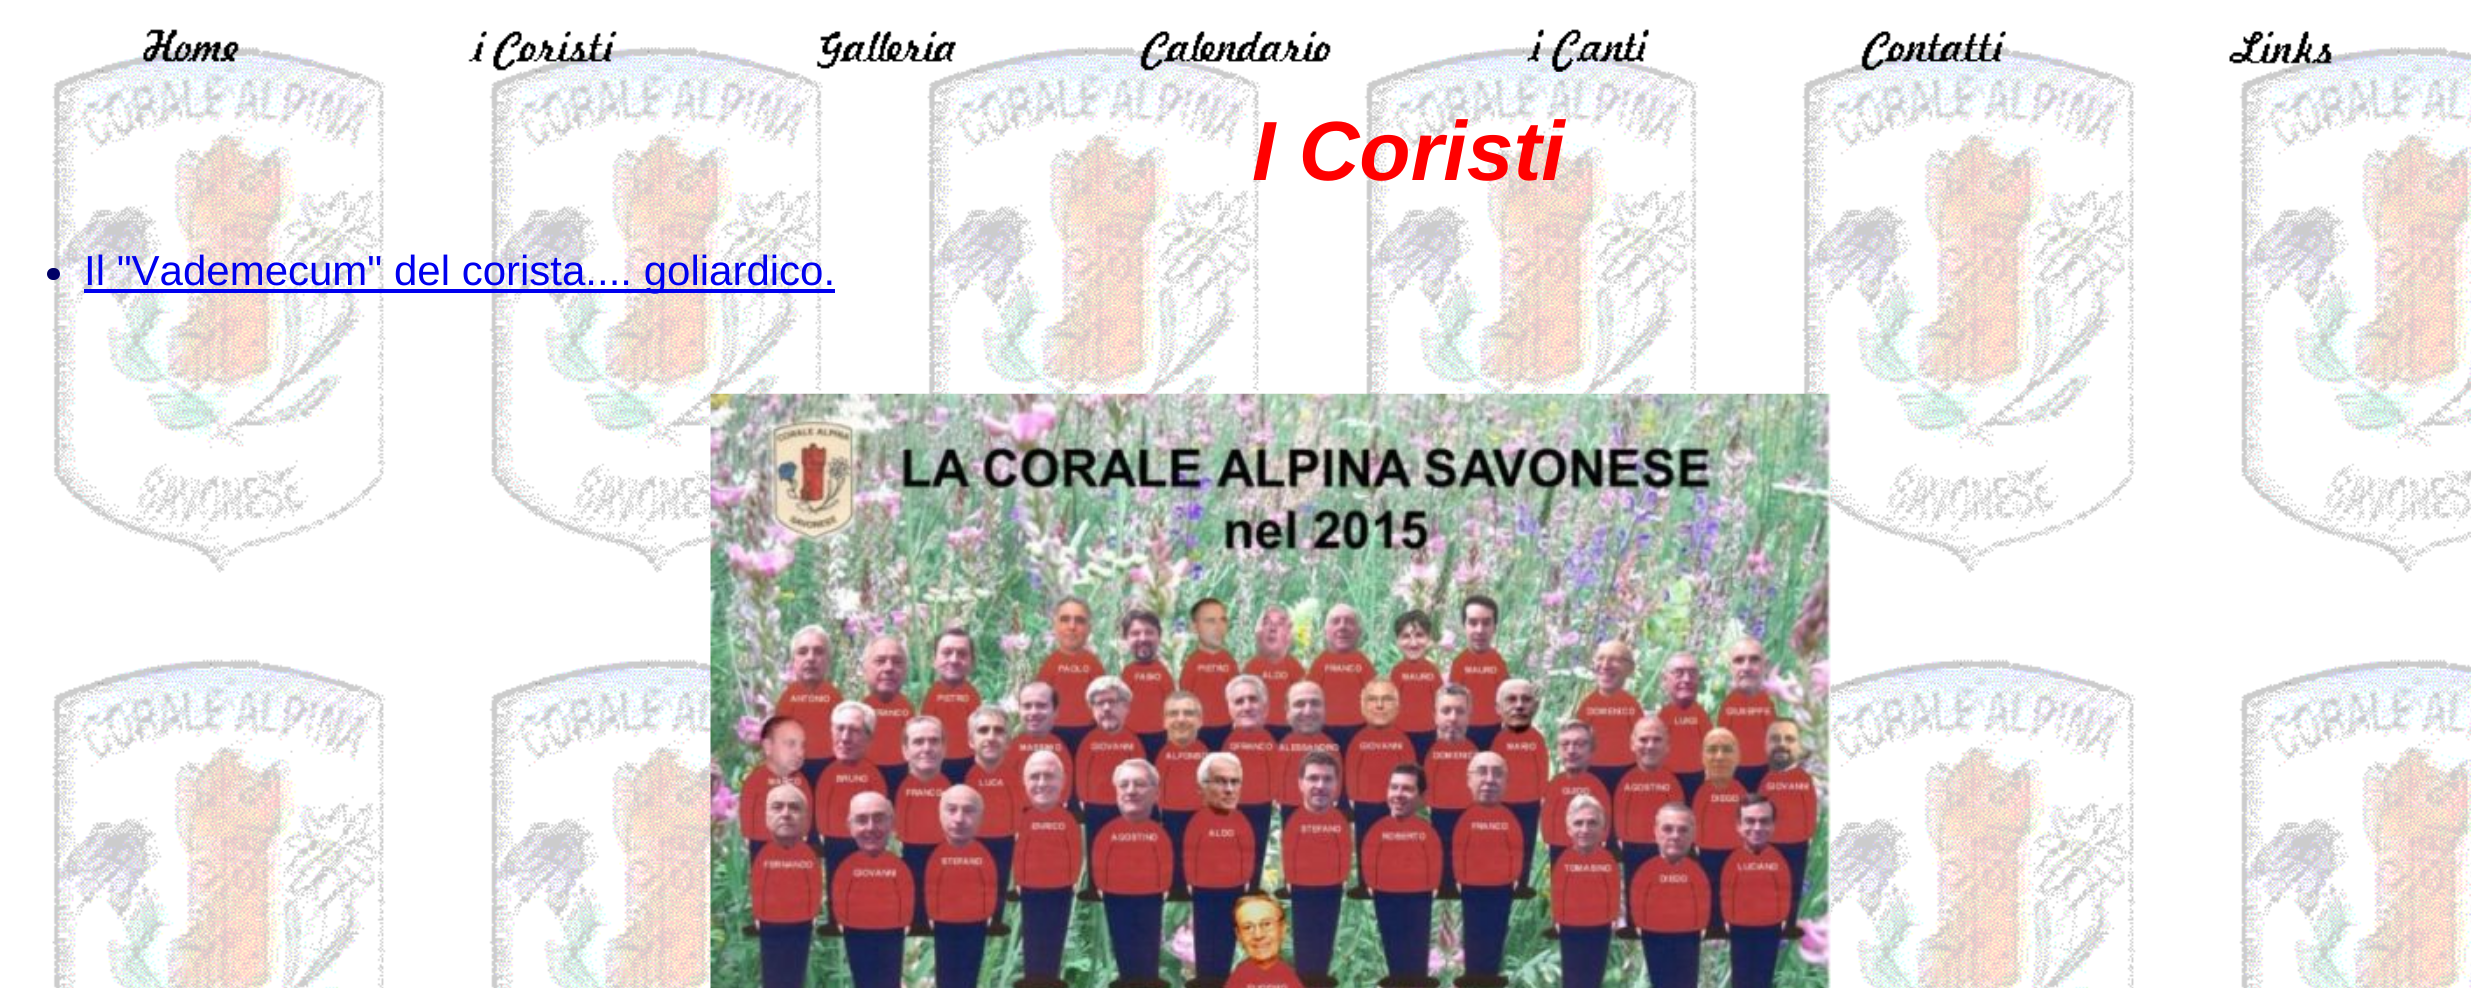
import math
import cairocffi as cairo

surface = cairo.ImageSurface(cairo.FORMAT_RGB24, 2471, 988)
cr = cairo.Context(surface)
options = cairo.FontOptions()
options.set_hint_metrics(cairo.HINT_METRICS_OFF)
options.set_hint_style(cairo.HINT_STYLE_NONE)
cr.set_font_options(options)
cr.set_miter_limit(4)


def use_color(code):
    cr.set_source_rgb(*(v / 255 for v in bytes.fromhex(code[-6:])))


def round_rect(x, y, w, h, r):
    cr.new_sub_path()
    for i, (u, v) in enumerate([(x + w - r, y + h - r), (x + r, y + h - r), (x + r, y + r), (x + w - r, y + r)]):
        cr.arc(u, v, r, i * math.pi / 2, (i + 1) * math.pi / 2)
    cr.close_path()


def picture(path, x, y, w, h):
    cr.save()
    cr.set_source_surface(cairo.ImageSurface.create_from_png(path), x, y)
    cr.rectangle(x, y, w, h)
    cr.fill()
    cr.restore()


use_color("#ffffff")
cr.paint()
picture("img1.png", 52, 47, 2419, 941)
picture("img2.png", 143, 29, 96, 33)
picture("img3.png", 468, 31, 149, 40)
picture("img4.png", 816, 31, 140, 38)
picture("img5.png", 1140, 31, 191, 40)
picture("img6.png", 1527, 29, 122, 43)
picture("img7.png", 1861, 31, 145, 40)
picture("img8.png", 2229, 31, 103, 33)
cr.select_font_face("Liberation Sans", cairo.FONT_SLANT_ITALIC, cairo.FONT_WEIGHT_BOLD)
cr.set_font_size(84)
use_color("#ff0000")
cr.move_to(1252, 180)
cr.show_text("I Coristi")
use_color("#000066")
round_rect(47, 268, 13, 12, 6)
cr.fill()
use_color("#0000ee")
cr.rectangle(84, 289, 751, 4)
cr.fill()
cr.select_font_face("Liberation Sans")
cr.set_font_size(42)
cr.move_to(84, 285)
cr.show_text("Il \"Vademecum\" del corista.... goliardico.")
picture("img9.png", 710, 393, 1121, 595)
surface.write_to_png("result.png")
